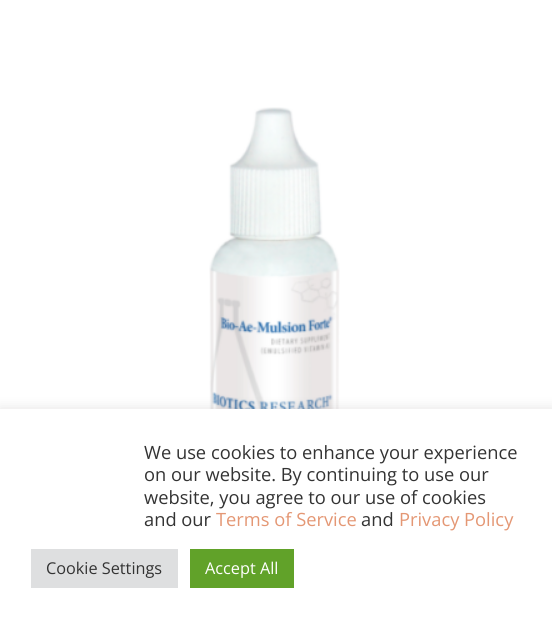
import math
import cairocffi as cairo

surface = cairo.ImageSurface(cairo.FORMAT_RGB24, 552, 624)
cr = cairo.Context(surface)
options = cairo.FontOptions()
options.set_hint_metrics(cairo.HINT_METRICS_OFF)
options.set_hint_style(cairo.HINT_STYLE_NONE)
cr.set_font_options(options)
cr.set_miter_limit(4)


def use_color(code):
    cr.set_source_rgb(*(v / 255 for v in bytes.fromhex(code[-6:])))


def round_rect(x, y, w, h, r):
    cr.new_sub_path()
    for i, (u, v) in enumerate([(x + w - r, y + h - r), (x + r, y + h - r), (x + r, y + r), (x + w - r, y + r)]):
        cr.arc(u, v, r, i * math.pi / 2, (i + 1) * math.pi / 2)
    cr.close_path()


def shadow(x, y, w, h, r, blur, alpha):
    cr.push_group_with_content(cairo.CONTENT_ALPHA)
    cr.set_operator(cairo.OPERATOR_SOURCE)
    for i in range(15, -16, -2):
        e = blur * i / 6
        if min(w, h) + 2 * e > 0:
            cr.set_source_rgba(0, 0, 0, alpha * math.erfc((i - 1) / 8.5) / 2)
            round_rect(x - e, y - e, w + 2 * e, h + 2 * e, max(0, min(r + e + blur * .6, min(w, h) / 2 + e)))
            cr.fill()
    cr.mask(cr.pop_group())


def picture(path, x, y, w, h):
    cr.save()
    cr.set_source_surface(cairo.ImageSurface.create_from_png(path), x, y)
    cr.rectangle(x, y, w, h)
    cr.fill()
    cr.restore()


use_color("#ffffff")
cr.paint()
picture("img1.png", 209, 107, 131, 302)
use_color("#acabab")
shadow(0, 408, 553, 216, 0, 6, 0.3)
use_color("#ffffff")
cr.rectangle(0, 409, 552, 215)
cr.fill()
cr.select_font_face("Open Sans")
cr.set_font_size(18.3)
use_color("#333333")
cr.move_to(144, 459)
cr.show_text("We use cookies to enhance your experience")
cr.move_to(144, 481)
cr.show_text("on our website. By continuing to use our")
cr.move_to(144, 504)
cr.show_text("website, you agree to our use of cookies")
cr.move_to(144, 526)
cr.show_text("and our")
use_color("#e49774")
cr.move_to(216, 526)
cr.show_text("Terms of Service")
use_color("#333333")
cr.move_to(361, 526)
cr.show_text("and")
use_color("#e49774")
cr.move_to(399, 526)
cr.show_text("Privacy Policy")
use_color("#dedfe0")
cr.rectangle(31, 549, 147, 39)
cr.fill()
cr.set_font_size(16.25)
use_color("#333333")
cr.move_to(46, 574)
cr.show_text("Cookie Settings")
use_color("#61a229")
cr.rectangle(190, 549, 104, 39)
cr.fill()
use_color("#ffffff")
cr.move_to(205, 574)
cr.show_text("Accept All")
surface.write_to_png("result.png")
